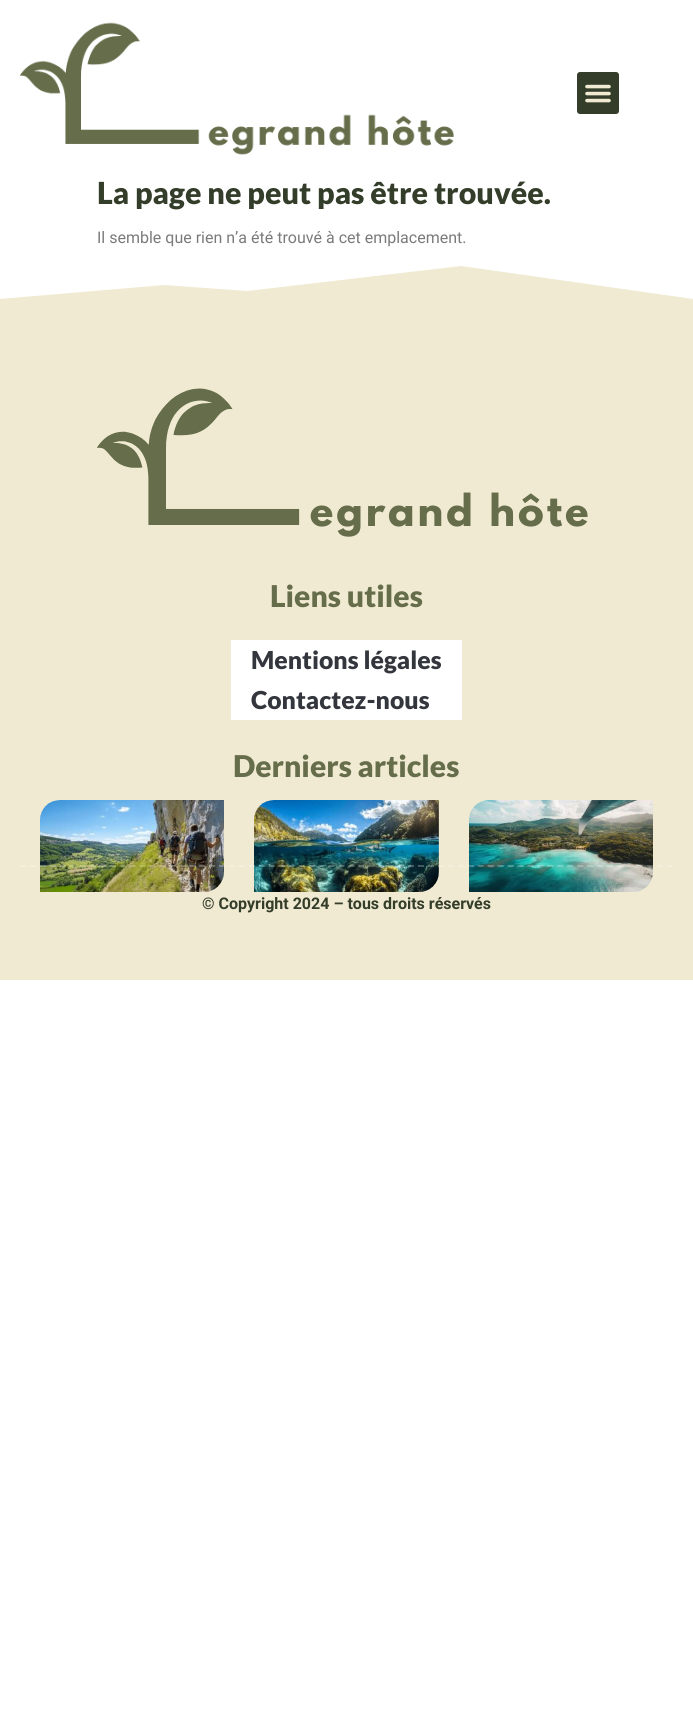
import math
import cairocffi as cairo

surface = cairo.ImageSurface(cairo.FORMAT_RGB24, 693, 1717)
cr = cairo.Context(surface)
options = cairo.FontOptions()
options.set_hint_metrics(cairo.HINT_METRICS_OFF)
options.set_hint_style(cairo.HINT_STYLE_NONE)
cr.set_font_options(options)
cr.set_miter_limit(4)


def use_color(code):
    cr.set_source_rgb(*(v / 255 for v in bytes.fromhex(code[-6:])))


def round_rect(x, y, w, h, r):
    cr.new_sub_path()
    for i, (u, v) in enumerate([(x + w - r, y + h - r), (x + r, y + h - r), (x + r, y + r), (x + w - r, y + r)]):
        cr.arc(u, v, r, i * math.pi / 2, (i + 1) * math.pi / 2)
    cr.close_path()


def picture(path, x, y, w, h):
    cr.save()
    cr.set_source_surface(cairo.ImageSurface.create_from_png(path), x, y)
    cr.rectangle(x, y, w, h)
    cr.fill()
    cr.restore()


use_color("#ffffff")
cr.paint()
picture("img1.png", 20, 22, 434, 133)
use_color("#333d29")
round_rect(577, 72, 42, 42, 3)
cr.fill()
picture("img2.png", 585, 84, 26, 19)
cr.select_font_face("Lato Black")
cr.set_font_size(30.4)
cr.move_to(97, 204)
cr.show_text("La page ne peut pas être trouvée.")
cr.select_font_face("Roboto")
cr.set_font_size(16)
use_color("#7a7a7a")
cr.move_to(97, 243)
cr.show_text("Il semble que rien n’a été trouvé à cet emplacement.")
use_color("#f0ead2")
cr.rectangle(0, 266, 693, 714)
cr.fill()
use_color("#ffffff")
cr.new_path()
cr.move_to(164, 285)
cr.line_to(247, 291)
cr.line_to(461, 266)
cr.line_to(693, 299)
cr.line_to(693, 264)
cr.line_to(-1, 264)
cr.line_to(-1, 299)
cr.fill()
picture("img3.png", 97, 388, 491, 149)
cr.select_font_face("Lato Black")
cr.set_font_size(30)
use_color("#656d4a")
cr.move_to(270, 607)
cr.show_text("Liens utiles")
use_color("#ffffff")
cr.rectangle(231, 640, 231, 80)
cr.fill()
cr.set_font_size(24.75)
use_color("#33373d")
cr.move_to(251, 669)
cr.show_text("Mentions légales")
cr.move_to(251, 709)
cr.show_text("Contactez-nous")
cr.set_font_size(30)
use_color("#656d4a")
cr.move_to(233, 777)
cr.show_text("Derniers articles")
picture("img4.png", 40, 800, 184, 92)
picture("img5.png", 254, 800, 185, 92)
picture("img6.png", 469, 800, 184, 92)
cr.new_path()
cr.move_to(20, 866)
cr.line_to(673, 866)
cr.set_source_rgba(1, 1, 1, 0.25)
cr.set_dash([6, 3.95])
cr.stroke()
cr.select_font_face("Roboto", cairo.FONT_SLANT_NORMAL, cairo.FONT_WEIGHT_BOLD)
cr.set_font_size(16)
use_color("#333d29")
cr.move_to(202, 909)
cr.show_text("© Copyright 2024 – tous droits réservés")
surface.write_to_png("result.png")
